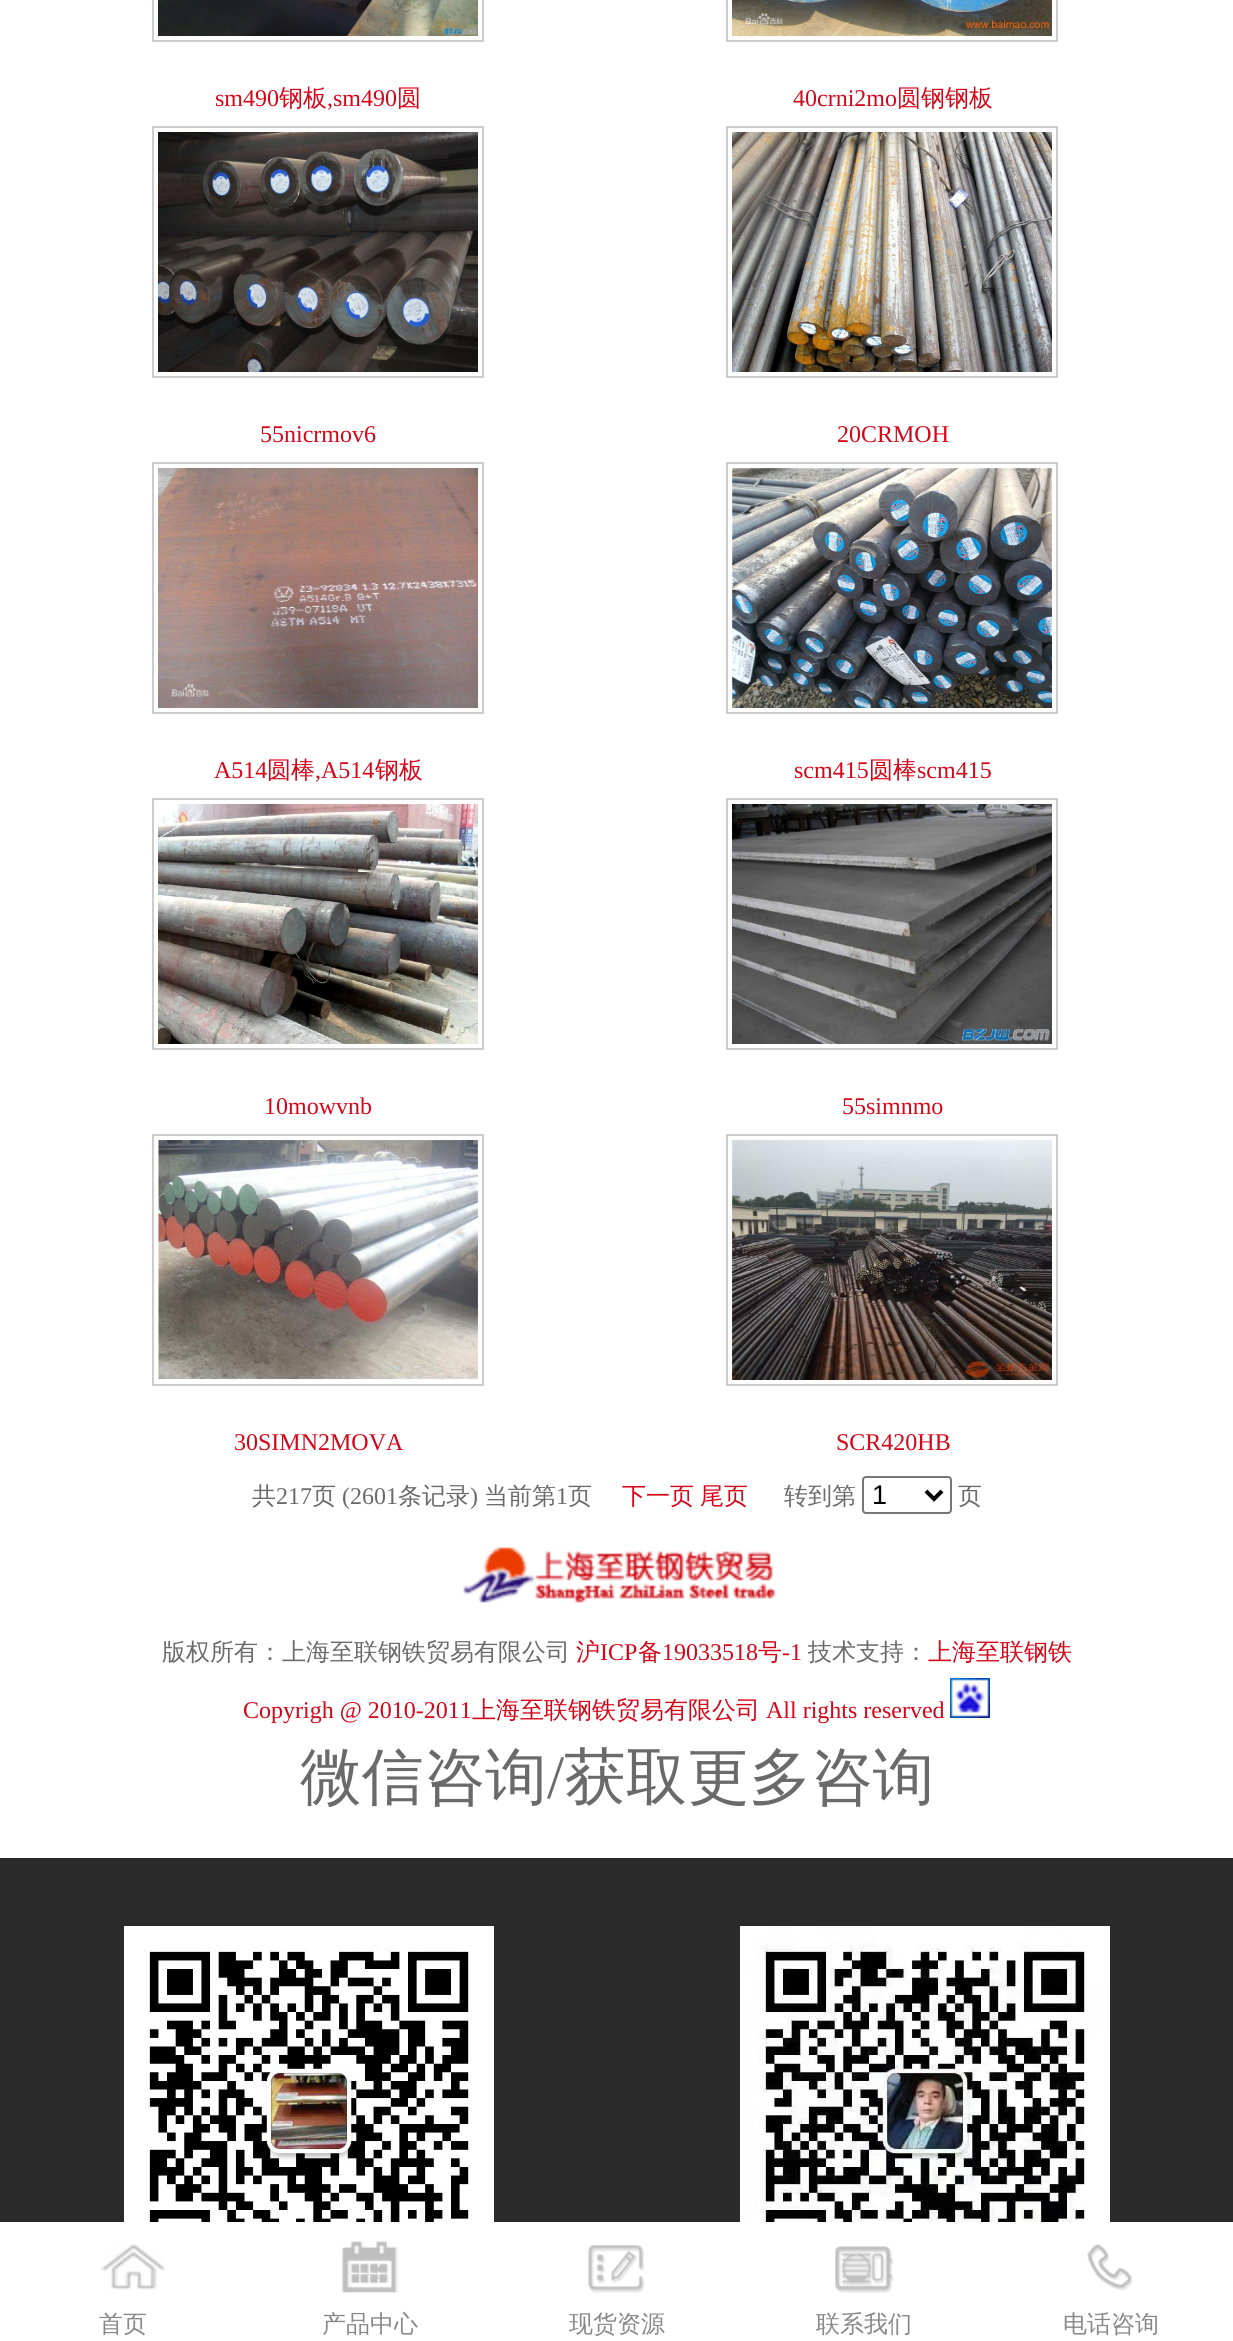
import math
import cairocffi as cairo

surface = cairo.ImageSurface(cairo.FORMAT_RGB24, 1233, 2341)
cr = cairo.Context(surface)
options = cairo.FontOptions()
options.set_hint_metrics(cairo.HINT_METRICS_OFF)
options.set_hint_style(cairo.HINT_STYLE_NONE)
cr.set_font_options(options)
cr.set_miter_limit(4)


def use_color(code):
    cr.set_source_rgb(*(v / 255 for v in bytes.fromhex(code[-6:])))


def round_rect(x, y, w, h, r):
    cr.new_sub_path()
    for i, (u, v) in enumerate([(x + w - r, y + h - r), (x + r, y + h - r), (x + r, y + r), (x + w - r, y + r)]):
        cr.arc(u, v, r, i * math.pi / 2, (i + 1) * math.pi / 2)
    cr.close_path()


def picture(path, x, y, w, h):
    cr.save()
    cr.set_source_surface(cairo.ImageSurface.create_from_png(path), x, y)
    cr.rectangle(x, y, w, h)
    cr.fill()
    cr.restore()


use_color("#ffffff")
cr.paint()
cr.rectangle(153, -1, 330, 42)
use_color("#cccccc")
cr.stroke()
picture("img1.png", 158, 0, 320, 36)
cr.select_font_face("Liberation Serif")
cr.set_font_size(24)
use_color("#d60619")
cr.move_to(215, 106)
cr.show_text("sm490")
cr.select_font_face("WenQuanYi Zen Hei Medium")
cr.move_to(279, 106)
cr.show_text("钢板")
cr.select_font_face("Liberation Serif")
cr.move_to(327, 106)
cr.show_text(",sm490")
cr.select_font_face("WenQuanYi Zen Hei Medium")
cr.move_to(397, 106)
cr.show_text("圆")
cr.rectangle(727, -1, 330, 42)
use_color("#cccccc")
cr.stroke()
picture("img2.png", 732, 0, 320, 36)
cr.select_font_face("Liberation Serif")
use_color("#d60619")
cr.move_to(793, 106)
cr.show_text("40crni2mo")
cr.select_font_face("WenQuanYi Zen Hei Medium")
cr.move_to(897, 106)
cr.show_text("圆钢钢板")
cr.rectangle(153, 127, 330, 250)
use_color("#cccccc")
cr.stroke()
picture("img3.png", 158, 132, 320, 240)
cr.select_font_face("Liberation Serif")
use_color("#d60619")
cr.move_to(260, 442)
cr.show_text("55nicrmov6")
cr.rectangle(727, 127, 330, 250)
use_color("#cccccc")
cr.stroke()
picture("img4.png", 732, 132, 320, 240)
use_color("#d60619")
cr.move_to(837, 442)
cr.show_text("20CRMOH")
cr.rectangle(153, 463, 330, 250)
use_color("#cccccc")
cr.stroke()
picture("img5.png", 158, 468, 320, 240)
use_color("#d60619")
cr.move_to(214, 778)
cr.show_text("A514")
cr.select_font_face("WenQuanYi Zen Hei Medium")
cr.move_to(267, 778)
cr.show_text("圆棒")
cr.select_font_face("Liberation Serif")
cr.move_to(315, 778)
cr.show_text(",A514")
cr.select_font_face("WenQuanYi Zen Hei Medium")
cr.move_to(375, 778)
cr.show_text("钢板")
cr.rectangle(727, 463, 330, 250)
use_color("#cccccc")
cr.stroke()
picture("img6.png", 732, 468, 320, 240)
cr.select_font_face("Liberation Serif")
use_color("#d60619")
cr.move_to(794, 778)
cr.show_text("scm415")
cr.select_font_face("WenQuanYi Zen Hei Medium")
cr.move_to(869, 778)
cr.show_text("圆棒")
cr.select_font_face("Liberation Serif")
cr.move_to(917, 778)
cr.show_text("scm415")
cr.rectangle(153, 799, 330, 250)
use_color("#cccccc")
cr.stroke()
picture("img7.png", 158, 804, 320, 240)
use_color("#d60619")
cr.move_to(264, 1114)
cr.show_text("10mowvnb")
cr.rectangle(727, 799, 330, 250)
use_color("#cccccc")
cr.stroke()
picture("img8.png", 732, 804, 320, 240)
use_color("#d60619")
cr.move_to(842, 1114)
cr.show_text("55simnmo")
cr.rectangle(153, 1135, 330, 250)
use_color("#cccccc")
cr.stroke()
picture("img9.png", 158, 1140, 320, 240)
use_color("#d60619")
cr.move_to(234, 1450)
cr.show_text("30SIMN2MOVA")
cr.rectangle(727, 1135, 330, 250)
use_color("#cccccc")
cr.stroke()
picture("img10.png", 732, 1140, 320, 240)
use_color("#d60619")
cr.move_to(836, 1450)
cr.show_text("SCR420HB")
cr.select_font_face("WenQuanYi Zen Hei Medium")
use_color("#6a6a6a")
cr.move_to(252, 1504)
cr.show_text("共")
cr.select_font_face("Liberation Serif")
cr.move_to(276, 1504)
cr.show_text("217")
cr.select_font_face("WenQuanYi Zen Hei Medium")
cr.move_to(312, 1504)
cr.show_text("页")
cr.select_font_face("Liberation Serif")
cr.move_to(342, 1504)
cr.show_text("(2601")
cr.select_font_face("WenQuanYi Zen Hei Medium")
cr.move_to(398, 1504)
cr.show_text("条记录")
cr.select_font_face("Liberation Serif")
cr.move_to(470, 1504)
cr.show_text(")")
cr.select_font_face("WenQuanYi Zen Hei Medium")
cr.move_to(484, 1504)
cr.show_text("当前第")
cr.select_font_face("Liberation Serif")
cr.move_to(556, 1504)
cr.show_text("1")
cr.select_font_face("WenQuanYi Zen Hei Medium")
cr.move_to(568, 1504)
cr.show_text("页")
use_color("#d60619")
cr.move_to(622, 1504)
cr.show_text("下一页")
cr.move_to(700, 1504)
cr.show_text("尾页")
use_color("#6a6a6a")
cr.move_to(784, 1504)
cr.show_text("转到第")
round_rect(863, 1477, 88, 36, 3)
use_color("#767676")
cr.stroke()
cr.new_path()
cr.move_to(926, 1491)
cr.line_to(934, 1499)
cr.line_to(942, 1491)
use_color("#000000")
cr.set_line_width(4)
cr.stroke()
cr.select_font_face("Liberation Sans")
cr.set_font_size(27)
cr.move_to(872, 1504)
cr.show_text("1")
cr.select_font_face("WenQuanYi Zen Hei Medium")
cr.set_font_size(24)
use_color("#6a6a6a")
cr.move_to(958, 1504)
cr.show_text("页")
picture("img11.png", 463, 1547, 314, 56)
cr.move_to(162, 1660)
cr.show_text("版权所有：上海至联钢铁贸易有限公司")
use_color("#d60619")
cr.move_to(576, 1660)
cr.show_text("沪")
cr.select_font_face("Liberation Serif")
cr.move_to(600, 1660)
cr.show_text("ICP")
cr.select_font_face("WenQuanYi Zen Hei Medium")
cr.move_to(638, 1660)
cr.show_text("备")
cr.select_font_face("Liberation Serif")
cr.move_to(662, 1660)
cr.show_text("19033518")
cr.select_font_face("WenQuanYi Zen Hei Medium")
cr.move_to(758, 1660)
cr.show_text("号")
cr.select_font_face("Liberation Serif")
cr.move_to(782, 1660)
cr.show_text("-1")
cr.select_font_face("WenQuanYi Zen Hei Medium")
use_color("#6a6a6a")
cr.move_to(808, 1660)
cr.show_text("技术支持：")
use_color("#d60619")
cr.move_to(928, 1660)
cr.show_text("上海至联钢铁")
cr.select_font_face("Liberation Serif")
cr.move_to(243, 1718)
cr.show_text("Copyrigh @ 2010-2011")
cr.select_font_face("WenQuanYi Zen Hei Medium")
cr.move_to(472, 1718)
cr.show_text("上海至联钢铁贸易有限公司")
cr.select_font_face("Liberation Serif")
cr.move_to(766, 1718)
cr.show_text("All rights reserved")
picture("img12.png", 950, 1678, 40, 40)
cr.select_font_face("WenQuanYi Zen Hei Medium")
cr.set_font_size(61.75)
use_color("#6a6a6a")
cr.move_to(300, 1798)
cr.show_text("微信咨询")
cr.select_font_face("Liberation Serif")
cr.move_to(547, 1798)
cr.show_text("/")
cr.select_font_face("WenQuanYi Zen Hei Medium")
cr.move_to(564, 1798)
cr.show_text("获取更多咨询")
use_color("#2b2b2b")
cr.rectangle(0, 1858, 1233, 364)
cr.fill()
picture("img13.png", 124, 1926, 370, 296)
picture("img14.png", 740, 1926, 370, 296)
picture("img15.png", 101, 2243, 64, 47)
cr.set_font_size(24)
use_color("#888888")
cr.move_to(99, 2332)
cr.show_text("首页")
picture("img16.png", 342, 2241, 57, 53)
cr.move_to(322, 2332)
cr.show_text("产品中心")
picture("img17.png", 588, 2245, 57, 48)
cr.move_to(569, 2332)
cr.show_text("现货资源")
picture("img18.png", 835, 2246, 59, 47)
cr.move_to(816, 2332)
cr.show_text("联系我们")
picture("img19.png", 1087, 2244, 46, 47)
cr.move_to(1063, 2332)
cr.show_text("电话咨询")
surface.write_to_png("result.png")
